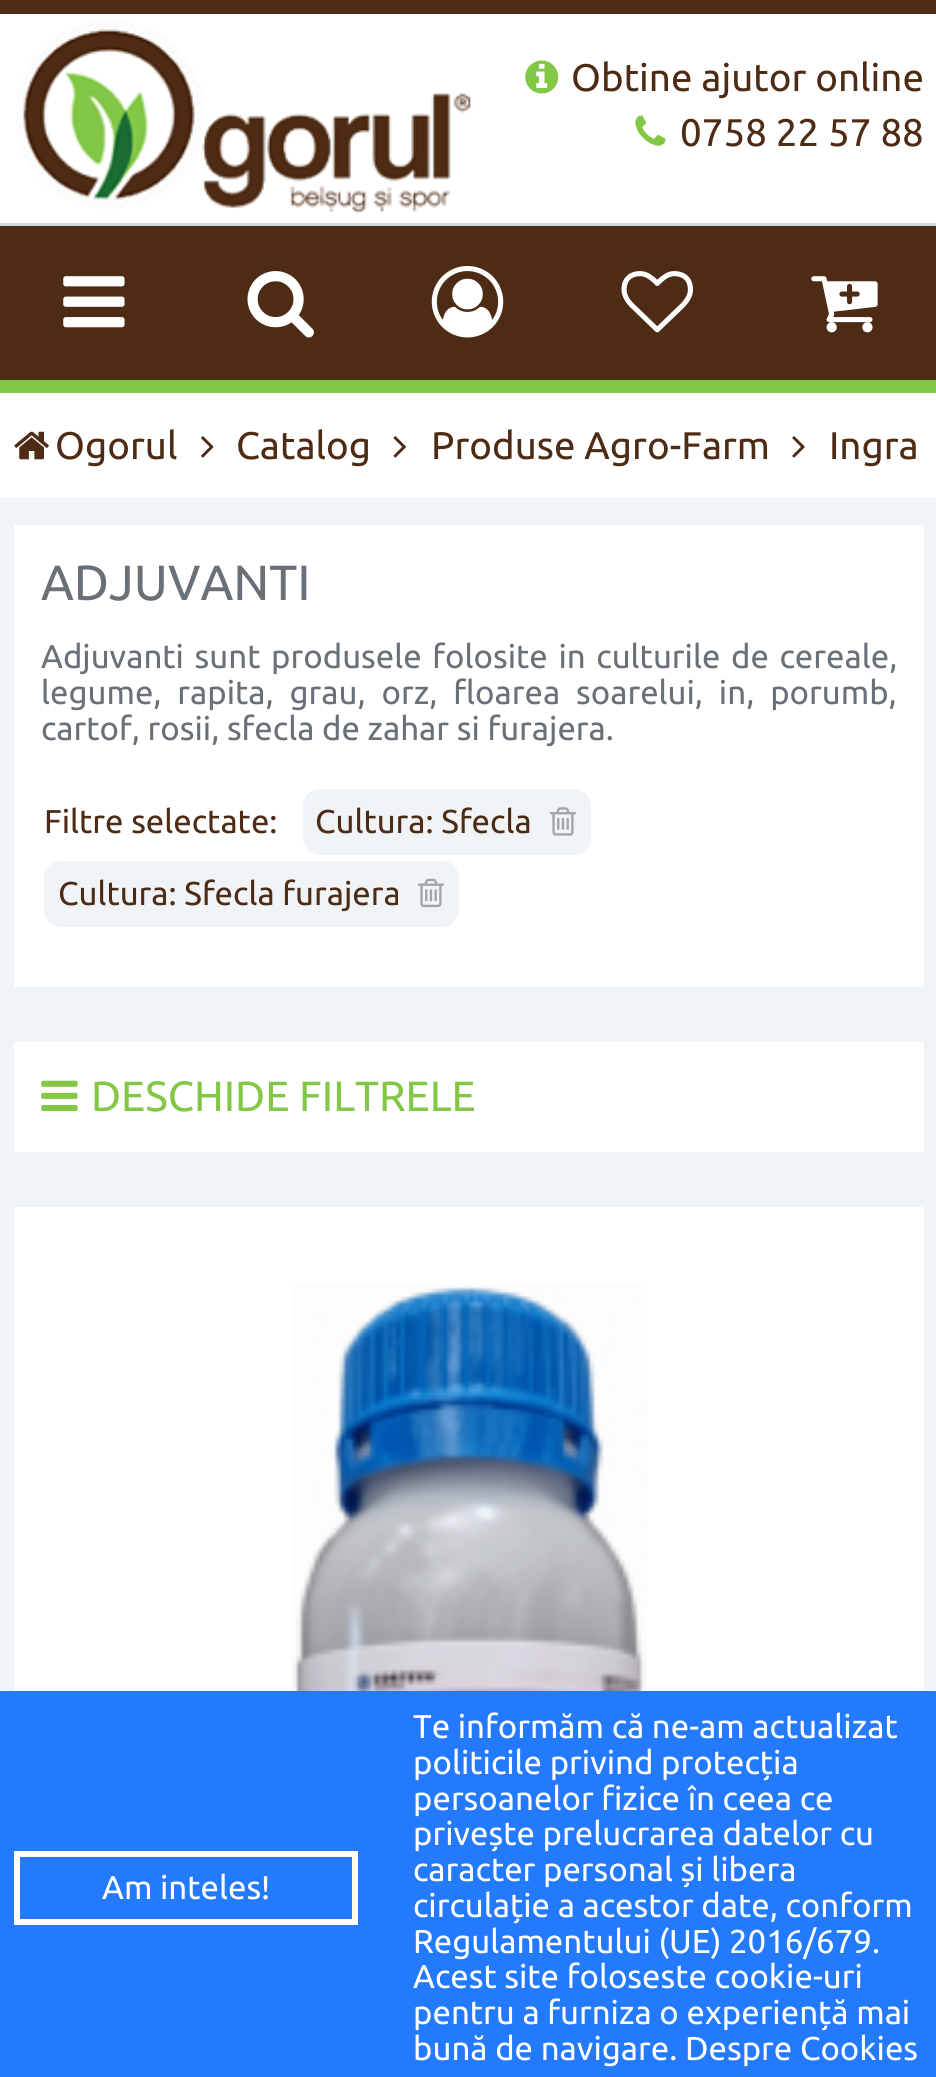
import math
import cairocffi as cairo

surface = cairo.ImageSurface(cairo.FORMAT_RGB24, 936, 2077)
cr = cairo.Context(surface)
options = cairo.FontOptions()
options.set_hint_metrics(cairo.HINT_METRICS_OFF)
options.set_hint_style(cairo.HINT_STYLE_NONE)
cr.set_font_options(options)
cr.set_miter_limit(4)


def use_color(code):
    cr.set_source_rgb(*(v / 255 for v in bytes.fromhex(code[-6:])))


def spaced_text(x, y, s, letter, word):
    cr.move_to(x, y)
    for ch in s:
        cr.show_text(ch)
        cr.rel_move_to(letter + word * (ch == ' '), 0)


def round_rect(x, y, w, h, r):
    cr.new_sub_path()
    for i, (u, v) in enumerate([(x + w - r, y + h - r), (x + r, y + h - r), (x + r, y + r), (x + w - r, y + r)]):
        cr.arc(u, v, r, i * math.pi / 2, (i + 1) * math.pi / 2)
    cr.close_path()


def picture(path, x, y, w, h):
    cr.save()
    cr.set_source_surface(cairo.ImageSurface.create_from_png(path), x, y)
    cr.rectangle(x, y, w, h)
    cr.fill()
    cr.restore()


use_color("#f1f4f7")
cr.paint()
use_color("#ffffff")
cr.rectangle(0, 14, 936, 209)
cr.fill()
use_color("#4d2b14")
cr.rectangle(0, 0, 936, 14)
cr.fill()
picture("img1.png", 16, 21, 455, 193)
picture("img2.png", 525, 60, 34, 34)
cr.select_font_face("Ubuntu")
cr.set_font_size(38.5)
cr.move_to(571, 91)
cr.show_text("Obtine ajutor online")
picture("img3.png", 635, 115, 31, 31)
cr.move_to(680, 146)
cr.show_text("0758 22 57 88")
cr.rectangle(0, 226, 936, 154)
cr.fill()
use_color("#d2dae3")
cr.rectangle(0, 223, 936, 3)
cr.fill()
use_color("#82c746")
cr.rectangle(0, 380, 936, 13)
cr.fill()
picture("img4.png", 63, 276, 62, 52)
picture("img5.png", 247, 271, 67, 67)
picture("img6.png", 431, 266, 73, 72)
picture("img7.png", 621, 271, 72, 62)
picture("img8.png", 811, 276, 67, 57)
use_color("#ffffff")
cr.rectangle(0, 393, 936, 105)
cr.fill()
picture("img9.png", 14, 431, 35, 29)
use_color("#4d2b14")
cr.move_to(55, 459)
cr.show_text("Ogorul")
picture("img10.png", 201, 436, 13, 22)
cr.move_to(236, 459)
cr.show_text("Catalog")
picture("img11.png", 393, 436, 13, 22)
cr.move_to(431, 459)
cr.show_text("Produse Agro-Farm")
picture("img12.png", 792, 436, 13, 22)
cr.move_to(829, 459)
cr.show_text("Ingra")
use_color("#ffffff")
cr.rectangle(14, 525, 910, 462)
cr.fill()
cr.set_font_size(49.5)
use_color("#697077")
cr.move_to(41, 600)
cr.show_text("ADJUVANTI")
cr.set_font_size(33)
spaced_text(41, 668, "Adjuvanti sunt produsele folosite in culturile de cereale,", 0, 3)
spaced_text(41, 704, "legume, rapita, grau, orz, floarea soarelui, in, porumb,", 0, 8.25)
cr.move_to(41, 740)
cr.show_text("cartof, rosii, sfecla de zahar si furajera.")
use_color("#4d2b14")
cr.move_to(44, 833)
cr.show_text("Filtre selectate:")
use_color("#f1f4f7")
round_rect(303, 789, 288, 66, 17)
cr.fill()
use_color("#4d2b14")
cr.move_to(315, 833)
cr.show_text("Cultura: Sfecla")
picture("img13.png", 550, 807, 26, 29)
use_color("#f1f4f7")
round_rect(44, 861, 415, 66, 17)
cr.fill()
use_color("#4d2b14")
cr.move_to(58, 905)
cr.show_text("Cultura: Sfecla furajera")
picture("img14.png", 418, 878, 26, 30)
use_color("#ffffff")
cr.rectangle(14, 1042, 910, 110)
cr.fill()
picture("img15.png", 41, 1080, 37, 31)
cr.set_font_size(42.25)
use_color("#82c746")
cr.move_to(91, 1111)
cr.show_text("DESCHIDE FILTRELE")
use_color("#ffffff")
cr.rectangle(14, 1207, 910, 484)
cr.fill()
picture("img16.png", 291, 1284, 356, 407)
use_color("#237afc")
cr.rectangle(0, 1691, 936, 386)
cr.fill()
cr.rectangle(17, 1854, 338, 68)
use_color("#ffffff")
cr.set_line_width(6)
cr.stroke()
cr.set_font_size(33)
cr.move_to(102, 1899)
cr.show_text("Am inteles!")
cr.move_to(413, 1738)
cr.show_text("Te informăm că ne-am actualizat")
cr.move_to(413, 1774)
cr.show_text("politicile privind protecția")
cr.move_to(413, 1810)
cr.show_text("persoanelor fizice în ceea ce")
cr.move_to(413, 1845)
cr.show_text("privește prelucrarea datelor cu")
cr.move_to(413, 1881)
cr.show_text("caracter personal și libera")
cr.move_to(413, 1917)
cr.show_text("circulație a acestor date, conform")
cr.move_to(413, 1953)
cr.show_text("Regulamentului (UE) 2016/679.")
cr.move_to(413, 1988)
cr.show_text("Acest site foloseste cookie-uri")
cr.move_to(413, 2024)
cr.show_text("pentru a furniza o experiență mai")
cr.move_to(413, 2060)
cr.show_text("bună de navigare. Despre Cookies")
surface.write_to_png("result.png")
